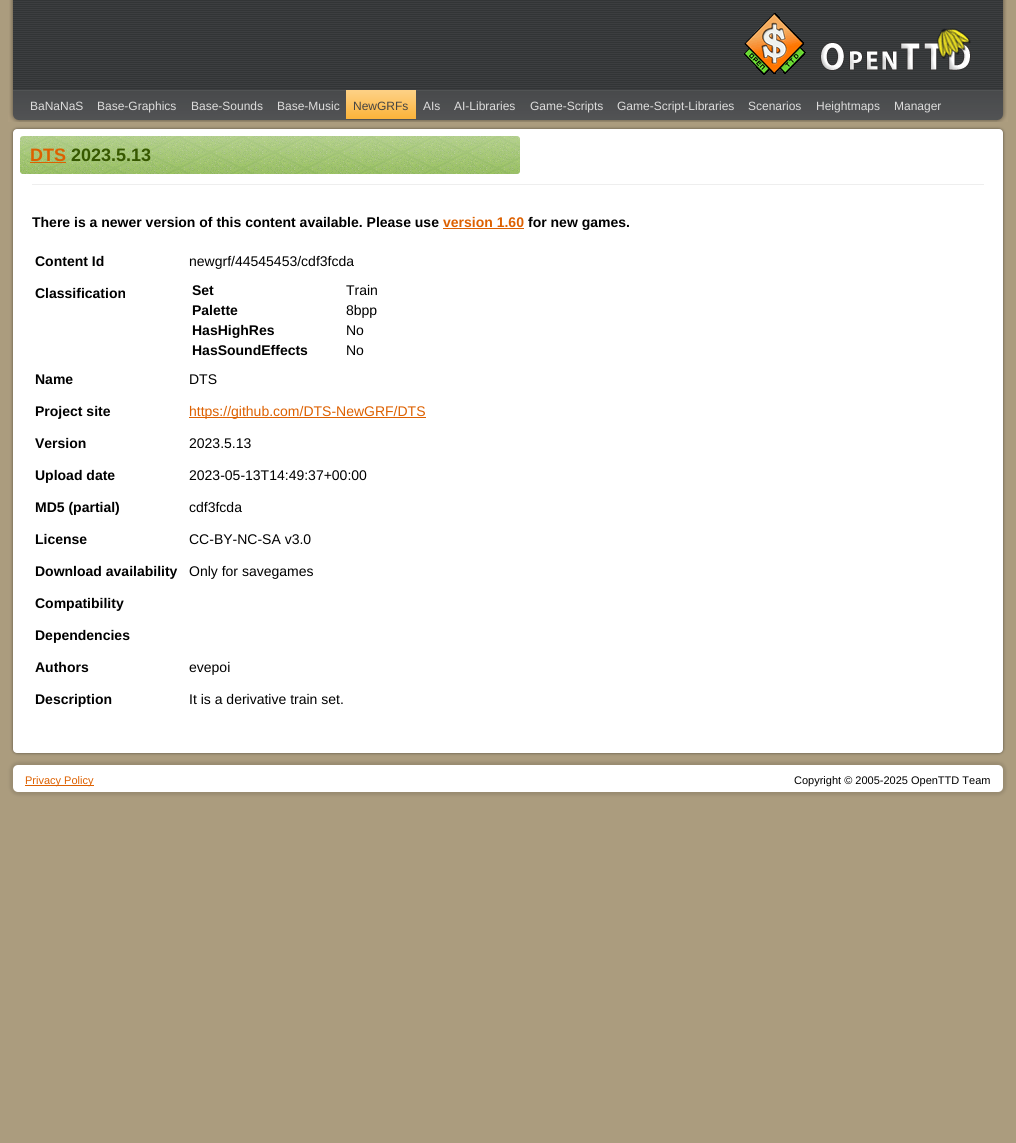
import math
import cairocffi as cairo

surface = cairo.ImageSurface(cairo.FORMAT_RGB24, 1016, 1143)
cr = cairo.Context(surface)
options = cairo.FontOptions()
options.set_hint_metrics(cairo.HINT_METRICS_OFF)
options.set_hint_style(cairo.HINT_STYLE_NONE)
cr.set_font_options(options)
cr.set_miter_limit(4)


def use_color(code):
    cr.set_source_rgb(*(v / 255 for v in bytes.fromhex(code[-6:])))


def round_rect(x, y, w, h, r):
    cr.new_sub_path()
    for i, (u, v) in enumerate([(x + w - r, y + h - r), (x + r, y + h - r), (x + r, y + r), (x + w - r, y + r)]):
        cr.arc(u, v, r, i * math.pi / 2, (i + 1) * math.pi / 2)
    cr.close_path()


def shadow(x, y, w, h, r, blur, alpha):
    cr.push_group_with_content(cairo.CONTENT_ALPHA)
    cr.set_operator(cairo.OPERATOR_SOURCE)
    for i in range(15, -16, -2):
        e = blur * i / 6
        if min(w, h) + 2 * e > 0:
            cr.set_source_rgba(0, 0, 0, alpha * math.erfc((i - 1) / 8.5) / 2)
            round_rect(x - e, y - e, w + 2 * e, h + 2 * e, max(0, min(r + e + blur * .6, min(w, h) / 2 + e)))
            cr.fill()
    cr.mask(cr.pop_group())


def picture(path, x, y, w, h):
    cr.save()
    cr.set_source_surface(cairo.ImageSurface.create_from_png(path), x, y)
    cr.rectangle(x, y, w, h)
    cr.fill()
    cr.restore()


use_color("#ab9c7e")
cr.paint()
picture("img1.png", 13, 0, 990, 90)
picture("img2.png", 8, 0, 5, 90)
picture("img3.png", 744, 12, 62, 63)
picture("img4.png", 820, 28, 151, 43)
picture("img5.png", 1003, 0, 5, 90)
picture("img6.png", 19, 90, 978, 32)
picture("img7.png", 8, 90, 11, 32)
cr.select_font_face("Liberation Sans")
cr.set_font_size(12)
use_color("#dddddd")
cr.move_to(30, 110)
cr.show_text("BaNaNaS")
cr.move_to(97, 110)
cr.show_text("Base-Graphics")
cr.move_to(191, 110)
cr.show_text("Base-Sounds")
cr.move_to(277, 110)
cr.show_text("Base-Music")
picture("img8.png", 346, 90, 70, 29)
use_color("#444444")
cr.move_to(353, 110)
cr.show_text("NewGRFs")
use_color("#dddddd")
cr.move_to(423, 110)
cr.show_text("AIs")
cr.move_to(454, 110)
cr.show_text("AI-Libraries")
cr.move_to(530, 110)
cr.show_text("Game-Scripts")
cr.move_to(617, 110)
cr.show_text("Game-Script-Libraries")
cr.move_to(748, 110)
cr.show_text("Scenarios")
cr.move_to(816, 110)
cr.show_text("Heightmaps")
cr.move_to(894, 110)
cr.show_text("Manager")
picture("img9.png", 997, 90, 11, 32)
use_color("#000000")
shadow(13, 129, 990, 624, 4, 1.5, 0.5)
use_color("#ffffff")
round_rect(13, 129, 990, 624, 4)
cr.fill()
picture("img10.png", 20, 136, 500, 38)
cr.select_font_face("Liberation Sans", cairo.FONT_SLANT_NORMAL, cairo.FONT_WEIGHT_BOLD)
cr.set_font_size(18)
use_color("#dd6000")
cr.move_to(30, 161)
cr.show_text("DTS")
cr.rectangle(30, 162, 36, 1)
cr.fill()
use_color("#365800")
cr.move_to(71, 161)
cr.show_text("2023.5.13")
use_color("#eeeeee")
cr.rectangle(32, 184, 952, 1)
cr.fill()
cr.set_font_size(14)
use_color("#000000")
cr.move_to(32, 227)
cr.show_text("There is a newer version of this content available. Please use")
use_color("#dd6000")
cr.move_to(443, 227)
cr.show_text("version 1.60")
cr.rectangle(443, 228, 81, 1)
cr.fill()
use_color("#000000")
cr.move_to(528, 227)
cr.show_text("for new games.")
cr.move_to(35, 266)
cr.show_text("Content Id")
cr.select_font_face("Liberation Sans")
cr.move_to(189, 266)
cr.show_text("newgrf/44545453/cdf3fcda")
cr.select_font_face("Liberation Sans", cairo.FONT_SLANT_NORMAL, cairo.FONT_WEIGHT_BOLD)
cr.move_to(35, 298)
cr.show_text("Classification")
cr.move_to(192, 295)
cr.show_text("Set")
cr.select_font_face("Liberation Sans")
cr.move_to(346, 295)
cr.show_text("Train")
cr.select_font_face("Liberation Sans", cairo.FONT_SLANT_NORMAL, cairo.FONT_WEIGHT_BOLD)
cr.move_to(192, 315)
cr.show_text("Palette")
cr.select_font_face("Liberation Sans")
cr.move_to(346, 315)
cr.show_text("8bpp")
cr.select_font_face("Liberation Sans", cairo.FONT_SLANT_NORMAL, cairo.FONT_WEIGHT_BOLD)
cr.move_to(192, 335)
cr.show_text("HasHighRes")
cr.select_font_face("Liberation Sans")
cr.move_to(346, 335)
cr.show_text("No")
cr.select_font_face("Liberation Sans", cairo.FONT_SLANT_NORMAL, cairo.FONT_WEIGHT_BOLD)
cr.move_to(192, 355)
cr.show_text("HasSoundEffects")
cr.select_font_face("Liberation Sans")
cr.move_to(346, 355)
cr.show_text("No")
cr.select_font_face("Liberation Sans", cairo.FONT_SLANT_NORMAL, cairo.FONT_WEIGHT_BOLD)
cr.move_to(35, 384)
cr.show_text("Name")
cr.select_font_face("Liberation Sans")
cr.move_to(189, 384)
cr.show_text("DTS")
cr.select_font_face("Liberation Sans", cairo.FONT_SLANT_NORMAL, cairo.FONT_WEIGHT_BOLD)
cr.move_to(35, 416)
cr.show_text("Project site")
use_color("#dd6000")
cr.rectangle(189, 417, 237, 1)
cr.fill()
cr.select_font_face("Liberation Sans")
cr.move_to(189, 416)
cr.show_text("https://github.com/DTS-NewGRF/DTS")
cr.select_font_face("Liberation Sans", cairo.FONT_SLANT_NORMAL, cairo.FONT_WEIGHT_BOLD)
use_color("#000000")
cr.move_to(35, 448)
cr.show_text("Version")
cr.select_font_face("Liberation Sans")
cr.move_to(189, 448)
cr.show_text("2023.5.13")
cr.select_font_face("Liberation Sans", cairo.FONT_SLANT_NORMAL, cairo.FONT_WEIGHT_BOLD)
cr.move_to(35, 480)
cr.show_text("Upload date")
cr.select_font_face("Liberation Sans")
cr.move_to(189, 480)
cr.show_text("2023-05-13T14:49:37+00:00")
cr.select_font_face("Liberation Sans", cairo.FONT_SLANT_NORMAL, cairo.FONT_WEIGHT_BOLD)
cr.move_to(35, 512)
cr.show_text("MD5 (partial)")
cr.select_font_face("Liberation Sans")
cr.move_to(189, 512)
cr.show_text("cdf3fcda")
cr.select_font_face("Liberation Sans", cairo.FONT_SLANT_NORMAL, cairo.FONT_WEIGHT_BOLD)
cr.move_to(35, 544)
cr.show_text("License")
cr.select_font_face("Liberation Sans")
cr.move_to(189, 544)
cr.show_text("CC-BY-NC-SA v3.0")
cr.select_font_face("Liberation Sans", cairo.FONT_SLANT_NORMAL, cairo.FONT_WEIGHT_BOLD)
cr.move_to(35, 576)
cr.show_text("Download availability")
cr.select_font_face("Liberation Sans")
cr.move_to(189, 576)
cr.show_text("Only for savegames")
cr.select_font_face("Liberation Sans", cairo.FONT_SLANT_NORMAL, cairo.FONT_WEIGHT_BOLD)
cr.move_to(35, 608)
cr.show_text("Compatibility")
cr.move_to(35, 640)
cr.show_text("Dependencies")
cr.move_to(35, 672)
cr.show_text("Authors")
cr.select_font_face("Liberation Sans")
cr.move_to(189, 672)
cr.show_text("evepoi")
cr.select_font_face("Liberation Sans", cairo.FONT_SLANT_NORMAL, cairo.FONT_WEIGHT_BOLD)
cr.move_to(35, 704)
cr.show_text("Description")
cr.select_font_face("Liberation Sans")
cr.move_to(189, 704)
cr.show_text("It is a derivative train set.")
use_color("#000000")
shadow(10, 762, 996, 33, 8, 1.5, 0.11)
use_color("#ffffff")
round_rect(13, 765, 990, 27, 5)
cr.fill()
use_color("#dd6000")
cr.rectangle(25, 785, 69, 1)
cr.fill()
cr.set_font_size(11)
cr.move_to(25, 784)
cr.show_text("Privacy Policy")
use_color("#000000")
cr.move_to(794, 784)
cr.show_text("Copyright © 2005-2025 OpenTTD Team")
surface.write_to_png("result.png")
